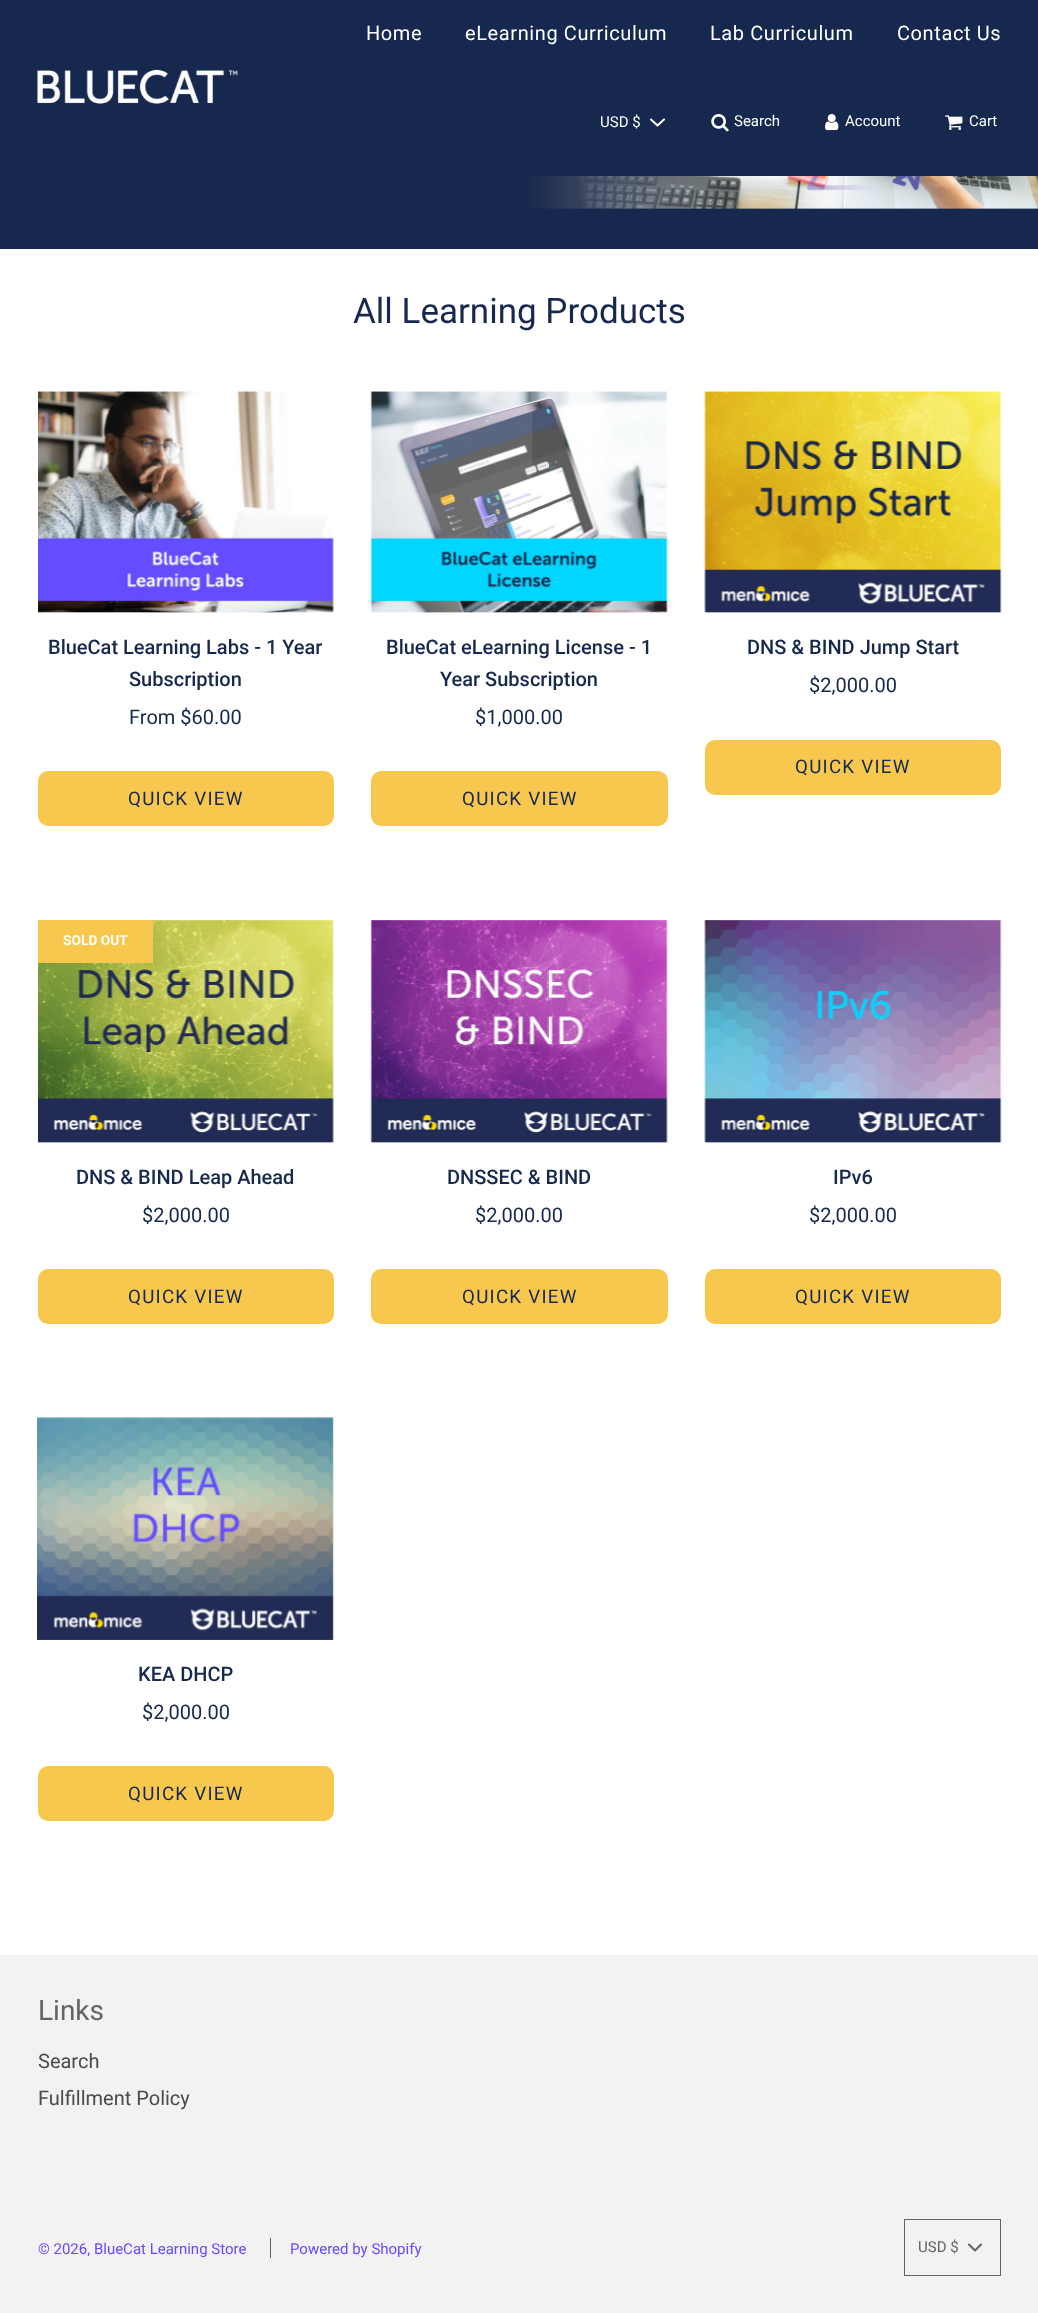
(async () => {
const canvas = document.querySelector("canvas")
canvas.width = 1038
canvas.height = 2313
const c = canvas.getContext("2d")
c.miterLimit = 4
c.fontKerning = "normal"
function T(s,x,y){c.fillText(s,x,y)}
function R(x,y,w,h){c.fillRect(x,y,w,h)}
function Q(x,y,w,h,r){c.beginPath();c.roundRect(x,y,w,h,r);c.fill()}
async function I(src,x,y,w,h){const img=new Image();img.src=src;await img.decode();c.drawImage(img,x,y,w,h)}
let path
c.fillStyle="#fff"
R(0,0,1038,2313)
c.fillStyle="#16284d"
R(0,0,1038,249)
await I("1.png",37,69,201,35)
c.letterSpacing="0.6px"
c.font="20px Roboto"
c.fillStyle="#fff"
T("Home",366,40)
T("eLearning Curriculum",465,40)
T("Lab Curriculum",710,40)
T("Contact Us",897,40)
c.letterSpacing="0px"
c.font="15px Roboto"
T("USD $",600,127)
path = new Path2D("M651 119.5l6.5 6l6.5-6")
c.strokeStyle="#fff"
c.lineWidth=2.1
c.lineCap="round"
c.lineJoin="round"
c.stroke(path)
await I("2.png",711,114,18,18)
T("Search",734,126)
await I("3.png",825,114,14,17)
T("Account",845,126)
await I("4.png",945,115,18,16)
T("Cart",969,126)
await I("5.png",527,176,511,33)
c.font="35px Roboto"
c.fillStyle="#16284d"
T("All Learning Products",353,323)
await I("6.png",38,391,296,222)
c.font="500 20px Roboto"
T("BlueCat Learning Labs - 1 Year",48,654)
T("Subscription",129,686)
c.font="20px Roboto"
T("From $60.00",129,724)
c.fillStyle="#f8c84e"
Q(38,771,296,55,10)
c.letterSpacing="1.25px"
c.font="18.75px Roboto"
c.fillStyle="#16284d"
T("QUICK VIEW",128,805)
await I("7.png",370,391,298,222)
c.letterSpacing="0px"
c.font="500 20px Roboto"
T("BlueCat eLearning License - 1",386,654)
T("Year Subscription",440,686)
c.font="20px Roboto"
T("$1,000.00",475,724)
c.fillStyle="#f8c84e"
Q(371,771,297,55,10)
c.letterSpacing="1.25px"
c.font="18.75px Roboto"
c.fillStyle="#16284d"
T("QUICK VIEW",462,805)
await I("8.png",704,391,298,222)
c.letterSpacing="0px"
c.font="500 20px Roboto"
T("DNS & BIND Jump Start",747,654)
c.font="20px Roboto"
T("$2,000.00",809,692)
c.fillStyle="#f8c84e"
Q(705,740,296,55,10)
c.letterSpacing="1.25px"
c.font="18.75px Roboto"
c.fillStyle="#16284d"
T("QUICK VIEW",795,773)
await I("9.png",38,920,296,223)
c.fillStyle="#f8c84e"
R(38,920,115,43)
c.letterSpacing="0px"
c.font="bold 13.75px Roboto"
c.fillStyle="#fff"
T("SOLD OUT",63,945)
c.font="500 20px Roboto"
c.fillStyle="#16284d"
T("DNS & BIND Leap Ahead",76,1184)
c.font="20px Roboto"
T("$2,000.00",142,1222)
c.fillStyle="#f8c84e"
Q(38,1269,296,55,10)
c.letterSpacing="1.25px"
c.font="18.75px Roboto"
c.fillStyle="#16284d"
T("QUICK VIEW",128,1303)
await I("10.png",370,920,298,223)
c.letterSpacing="0px"
c.font="500 20px Roboto"
T("DNSSEC & BIND",447,1184)
c.font="20px Roboto"
T("$2,000.00",475,1222)
c.fillStyle="#f8c84e"
Q(371,1269,297,55,10)
c.letterSpacing="1.25px"
c.font="18.75px Roboto"
c.fillStyle="#16284d"
T("QUICK VIEW",462,1303)
await I("11.png",704,920,298,223)
c.letterSpacing="0px"
c.font="500 20px Roboto"
T("IPv6",833,1184)
c.font="20px Roboto"
T("$2,000.00",809,1222)
c.fillStyle="#f8c84e"
Q(705,1269,296,55,10)
c.letterSpacing="1.25px"
c.font="18.75px Roboto"
c.fillStyle="#16284d"
T("QUICK VIEW",795,1303)
await I("12.png",37,1417,297,223)
c.letterSpacing="0px"
c.font="500 20px Roboto"
T("KEA DHCP",138,1681)
c.font="20px Roboto"
T("$2,000.00",142,1719)
c.fillStyle="#f8c84e"
Q(38,1766,296,55,10)
c.letterSpacing="1.25px"
c.font="18.75px Roboto"
c.fillStyle="#16284d"
T("QUICK VIEW",128,1800)
c.fillStyle="#f2f2f2"
R(0,1955,1038,358)
c.letterSpacing="0px"
c.font="28px Roboto"
c.fillStyle="#636363"
T("Links",38,2020)
c.font="20px Roboto"
c.fillStyle="#4a4a4a"
T("Search",38,2068)
T("Fulfillment Policy",38,2105)
c.font="15px Roboto"
c.fillStyle="#634dff"
T("© 2026, BlueCat Learning Store",38,2254)
c.fillStyle="#636363"
R(270,2238,1,20)
c.fillStyle="#634dff"
T("Powered by Shopify",290,2254)
c.strokeStyle="#636363"
c.lineWidth=1
c.lineJoin="miter"
c.strokeRect(904.5,2219.5,96,56)
c.fillStyle="#636363"
T("USD $",918,2252)
path = new Path2D("M969 2244.5l6 6l6-6")
c.lineWidth=2.1
c.lineJoin="round"
c.stroke(path)
})()
